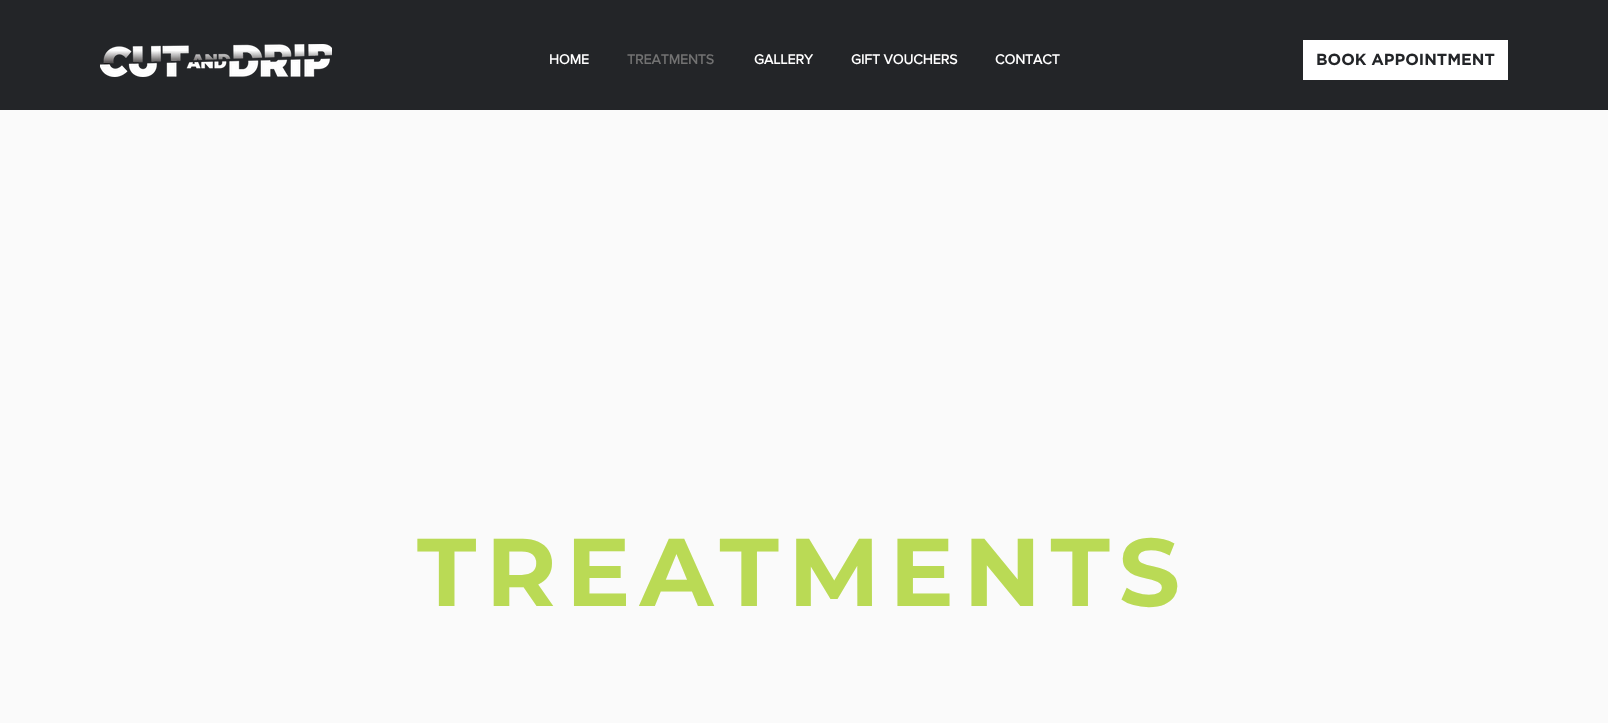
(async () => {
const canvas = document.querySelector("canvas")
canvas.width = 1608
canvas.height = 723
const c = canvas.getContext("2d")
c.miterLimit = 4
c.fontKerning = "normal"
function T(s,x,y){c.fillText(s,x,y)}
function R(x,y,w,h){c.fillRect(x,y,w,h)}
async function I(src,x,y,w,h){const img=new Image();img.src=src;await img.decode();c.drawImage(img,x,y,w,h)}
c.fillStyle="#232528"
R(0,0,1608,723)
await I("1.png",100,44,232,33)
c.font="bold 14px 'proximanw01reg'"
c.fillStyle="#fff"
T("HOME",549,64)
c.fillStyle="#727272"
T("TREATMENTS",627,64)
c.fillStyle="#fff"
T("GALLERY",754,64)
T("GIFT VOUCHERS",851,64)
T("CONTACT",995,64)
R(1303,40,205,40)
c.font="bold 16px Gotham"
c.fillStyle="#232528"
T("BOOK APPOINTMENT",1316,65)
c.fillStyle="#fafafa"
R(0,110,1608,613)
c.letterSpacing="9.5px"
c.font="bold 96px Montserrat"
c.fillStyle="#bada55"
T("TREATMENTS",417,606)
})()
